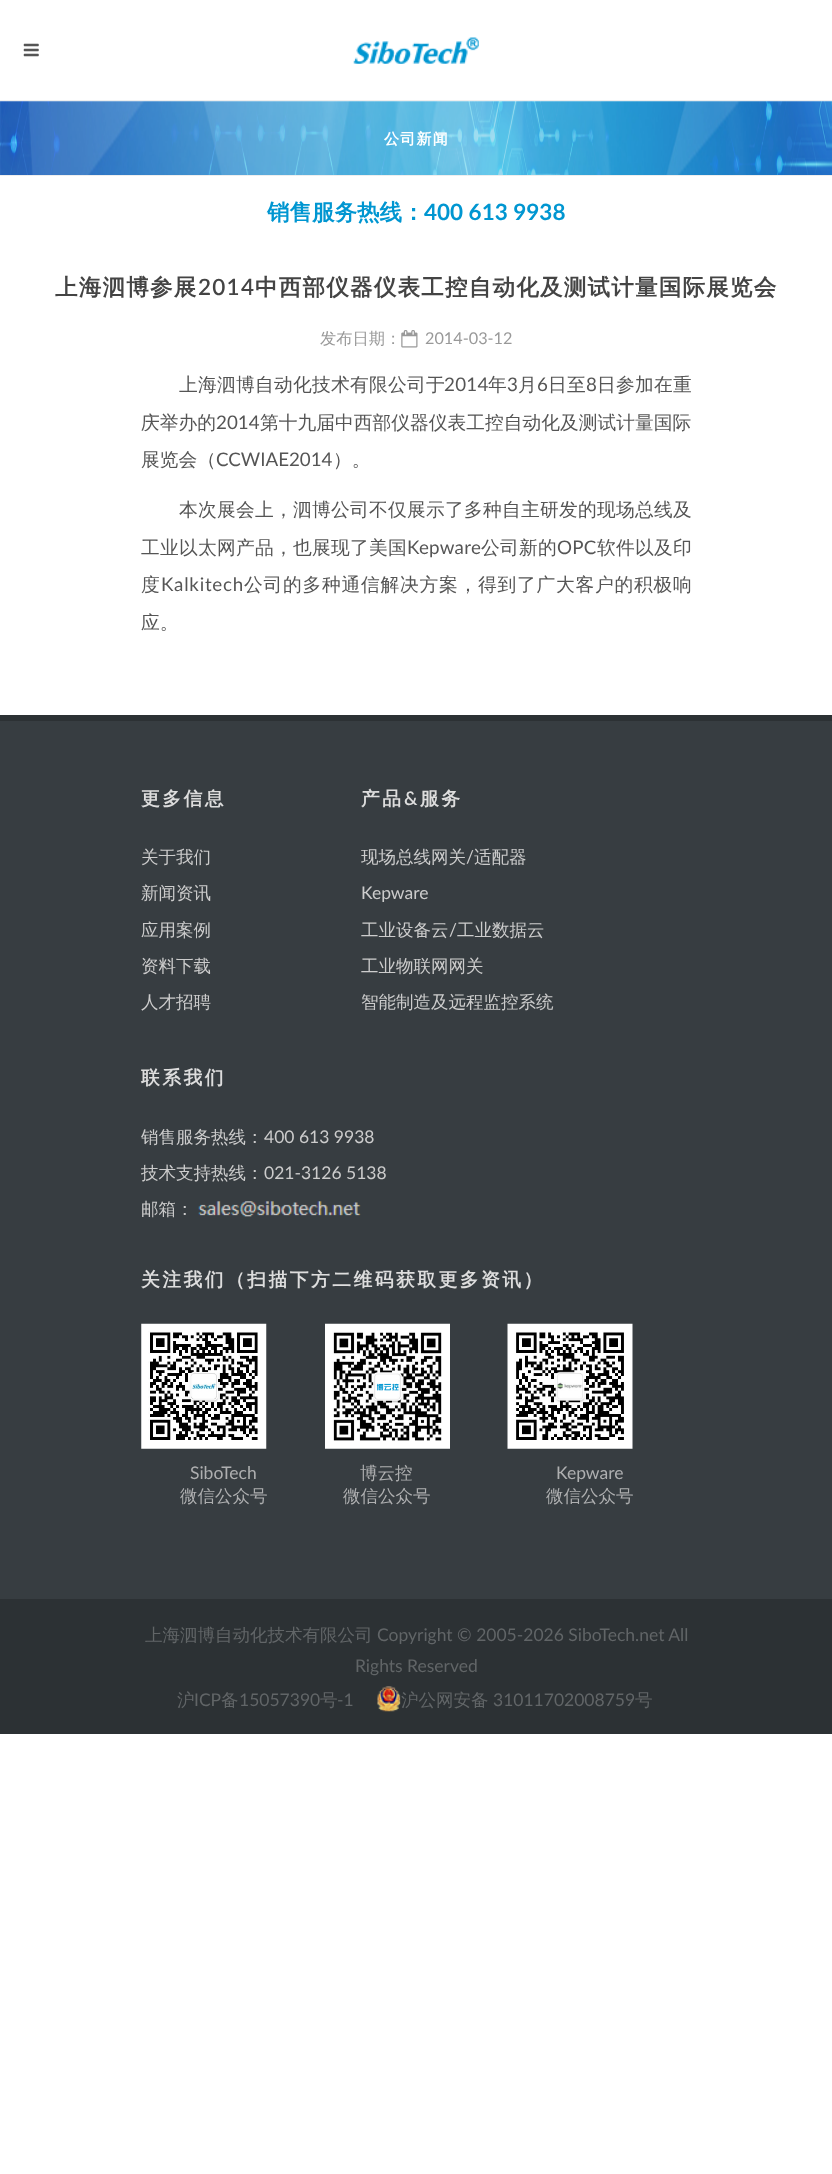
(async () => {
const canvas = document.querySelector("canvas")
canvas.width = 832
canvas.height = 2174
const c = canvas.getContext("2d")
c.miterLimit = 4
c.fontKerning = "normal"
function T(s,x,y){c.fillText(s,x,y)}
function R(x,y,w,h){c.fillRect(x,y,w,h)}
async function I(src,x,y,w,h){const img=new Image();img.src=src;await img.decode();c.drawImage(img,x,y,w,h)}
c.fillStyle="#fff"
R(0,0,832,2174)
c.fillStyle="#eee"
R(0,100,832,1)
await I("1.png",23,43,16,14)
await I("2.png",353,37,126,27)
await I("3.png",0,101,832,74)
R(0,175,832,1)
c.letterSpacing="1.25px"
c.font="bold 15px WenQuanYi Zen Hei"
c.fillStyle="#fff"
T("公司新闻",384,144)
c.letterSpacing="0px"
c.font="bold 22.5px WenQuanYi Zen Hei"
c.fillStyle="#0096d1"
T("销售服务热线：",267,220)
c.font="bold 22.5px Lato"
T("400 613 9938",424,220)
c.letterSpacing="1.25px"
c.font="bold 22.5px WenQuanYi Zen Hei"
c.fillStyle="#444"
T("上海泗博参展",55,295)
c.font="600 22.5px Lato"
T("2014",198,295)
c.font="bold 22.5px WenQuanYi Zen Hei"
T("中西部仪器仪表工控自动化及测试计量国际展览会",255,295)
c.letterSpacing="0px"
c.font="500 16.25px WenQuanYi Zen Hei"
c.fillStyle="#999"
T("发布日期：",320,344)
await I("4.png",401,330,17,18)
c.font="16.25px Lato"
T("2014-03-12",425,344)
c.letterSpacing="0.25px"
c.font="500 18.75px WenQuanYi Zen Hei"
c.fillStyle="#555"
T("上海泗博自动化技术有限公司于",179,391)
c.font="18.75px Lato"
T("2014",444,391)
c.font="500 18.75px WenQuanYi Zen Hei"
T("年",488,391)
c.font="18.75px Lato"
T("3",507,391)
c.font="500 18.75px WenQuanYi Zen Hei"
T("月",518,391)
c.font="18.75px Lato"
T("6",537,391)
c.font="500 18.75px WenQuanYi Zen Hei"
T("日至",548,391)
c.font="18.75px Lato"
T("8",586,391)
c.font="500 18.75px WenQuanYi Zen Hei"
T("日参加在重",597,391)
c.letterSpacing="0px"
T("庆举办的",141,429)
c.font="18.75px Lato"
T("2014",216,429)
c.font="500 18.75px WenQuanYi Zen Hei"
T("第十九届中西部仪器仪表工控自动化及测试计量国际",260,429)
T("展览会（",141,466)
c.font="18.75px Lato"
T("CCWIAE2014",216,466)
c.font="500 18.75px WenQuanYi Zen Hei"
T("）。",333,466)
c.letterSpacing="0.25px"
T("本次展会上，泗博公司不仅展示了多种自主研发的现场总线及",179,516)
T("工业以太网产品，也展现了美国",141,554)
c.font="18.75px Lato"
T("Kepware",407,554)
c.font="500 18.75px WenQuanYi Zen Hei"
T("公司新的",481,554)
c.font="18.75px Lato"
T("OPC",557,554)
c.font="500 18.75px WenQuanYi Zen Hei"
T("软件以及印",597,554)
c.letterSpacing="0.75px"
T("度",141,591)
c.font="18.75px Lato"
T("Kalkitech",161,591)
c.font="500 18.75px WenQuanYi Zen Hei"
T("公司的多种通信解决方案，得到了广大客户的积极响",244,591)
c.letterSpacing="0px"
T("应。",141,629)
c.fillStyle="#373d41"
R(0,721,832,878)
c.fillStyle="#2c3134"
R(0,715,832,6)
c.letterSpacing="2.5px"
c.font="bold 18.75px WenQuanYi Zen Hei"
c.fillStyle="#ddd"
T("更多信息",141,805)
c.letterSpacing="0px"
c.font="500 17.5px WenQuanYi Zen Hei"
c.fillStyle="#ccc"
T("关于我们",141,863)
T("新闻资讯",141,899)
T("应用案例",141,936)
T("资料下载",141,972)
T("人才招聘",141,1008)
c.letterSpacing="2.5px"
c.font="bold 18.75px WenQuanYi Zen Hei"
c.fillStyle="#ddd"
T("产品",361,805)
c.font="600 18.75px Lato"
T("&",404,805)
c.font="bold 18.75px WenQuanYi Zen Hei"
T("服务",420,805)
c.letterSpacing="0px"
c.font="500 17.5px WenQuanYi Zen Hei"
c.fillStyle="#ccc"
T("现场总线网关",361,863)
c.font="17.5px Lato"
T("/",466,863)
c.font="500 17.5px WenQuanYi Zen Hei"
T("适配器",474,863)
c.font="17.5px Lato"
T("Kepware",361,899)
c.font="500 17.5px WenQuanYi Zen Hei"
T("工业设备云",361,936)
c.font="17.5px Lato"
T("/",449,936)
c.font="500 17.5px WenQuanYi Zen Hei"
T("工业数据云",457,936)
T("工业物联网网关",361,972)
T("智能制造及远程监控系统",361,1008)
c.letterSpacing="2.5px"
c.font="bold 18.75px WenQuanYi Zen Hei"
c.fillStyle="#ddd"
T("联系我们",141,1084)
c.letterSpacing="0px"
c.font="500 17.5px WenQuanYi Zen Hei"
c.fillStyle="#ccc"
T("销售服务热线：",141,1143)
c.font="17.5px Lato"
T("400 613 9938",264,1143)
c.font="500 17.5px WenQuanYi Zen Hei"
T("技术支持热线：",141,1179)
c.font="17.5px Lato"
T("021-3126 5138",264,1179)
c.font="500 17.5px WenQuanYi Zen Hei"
T("邮箱：",141,1215)
await I("5.png",198,1201,163,16)
c.letterSpacing="2.5px"
c.font="bold 18.75px WenQuanYi Zen Hei"
c.fillStyle="#ddd"
T("关注我们（扫描下方二维码获取更多资讯）",141,1286)
await I("6.png",141,1323,126,126)
c.letterSpacing="0px"
c.font="17.5px Lato"
c.fillStyle="#aeafb0"
T("SiboTech",190,1479)
c.font="500 17.5px WenQuanYi Zen Hei"
T("微信公众号",180,1502)
await I("7.png",325,1323,125,126)
T("博云控",360,1479)
T("微信公众号",343,1502)
await I("8.png",507,1323,126,126)
c.font="17.5px Lato"
T("Kepware",556,1479)
c.font="500 17.5px WenQuanYi Zen Hei"
T("微信公众号",546,1502)
c.fillStyle="#2c3134"
R(0,1599,832,135)
c.fillStyle="#616567"
T("上海泗博自动化技术有限公司",145,1641)
c.font="17.5px Lato"
T("Copyright © 2005-2026 SiboTech.net All",377,1641)
T("Rights Reserved",355,1672)
c.font="500 17.5px WenQuanYi Zen Hei"
T("沪",177,1706)
c.font="17.5px Lato"
T("ICP",194,1706)
c.font="500 17.5px WenQuanYi Zen Hei"
T("备",221,1706)
c.font="17.5px Lato"
T("15057390",239,1706)
c.font="500 17.5px WenQuanYi Zen Hei"
T("号",320,1706)
c.font="17.5px Lato"
T("-1",337,1706)
c.font="500 17.5px WenQuanYi Zen Hei"
T("沪公网安备",401,1706)
await I("9.png",377,1686,24,26)
c.font="17.5px Lato"
T("31011702008759",493,1706)
c.font="500 17.5px WenQuanYi Zen Hei"
T("号",635,1706)
})()
